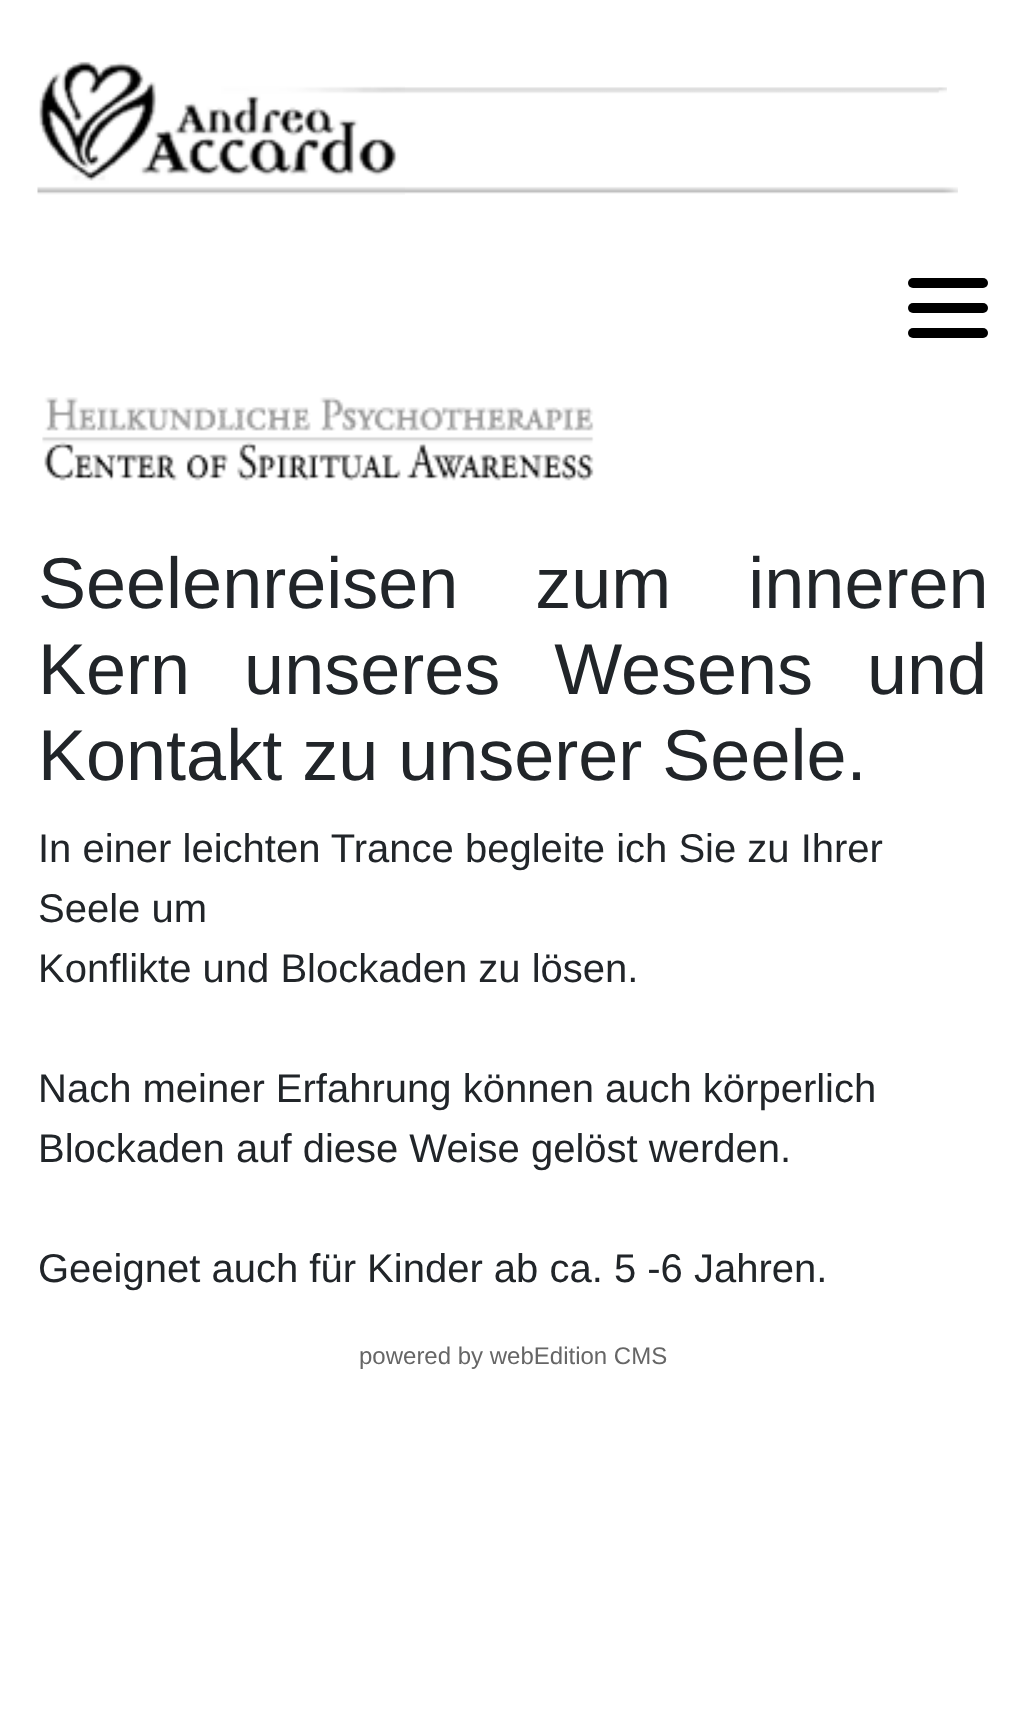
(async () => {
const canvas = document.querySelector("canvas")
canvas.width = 1023
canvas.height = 1726
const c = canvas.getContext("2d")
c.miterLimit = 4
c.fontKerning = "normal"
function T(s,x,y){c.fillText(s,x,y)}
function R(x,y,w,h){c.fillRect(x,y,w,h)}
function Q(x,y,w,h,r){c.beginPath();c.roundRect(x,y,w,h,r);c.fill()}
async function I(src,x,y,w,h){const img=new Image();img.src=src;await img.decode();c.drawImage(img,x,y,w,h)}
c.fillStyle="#fff"
R(0,0,1023,1726)
await I("1.png",405,87,553,107)
await I("2.png",37,61,368,134)
c.fillStyle="#000"
Q(908,278,80,10,5)
Q(908,303,80,10,5)
Q(908,328,80,10,5)
await I("3.png",42,397,552,84)
c.wordSpacing="57px"
c.font="72px Liberation Sans"
c.fillStyle="#212529"
T("Seelenreisen zum inneren",38,608)
c.wordSpacing="34px"
T("Kern unseres Wesens und",38,694)
c.wordSpacing="0px"
T("Kontakt zu unserer Seele.",38,780)
c.font="40px Liberation Sans"
T("In einer leichten Trance begleite ich Sie zu Ihrer",38,862)
T("Seele um",38,922)
T("Konflikte und Blockaden zu lösen.",38,982)
T("Nach meiner Erfahrung können auch körperlich",38,1102)
T("Blockaden auf diese Weise gelöst werden.",38,1162)
T("Geeignet auch für Kinder ab ca. 5 -6 Jahren.",38,1282)
c.font="24px Liberation Sans"
c.fillStyle="#666"
T("powered by webEdition CMS",359,1364)
})()
